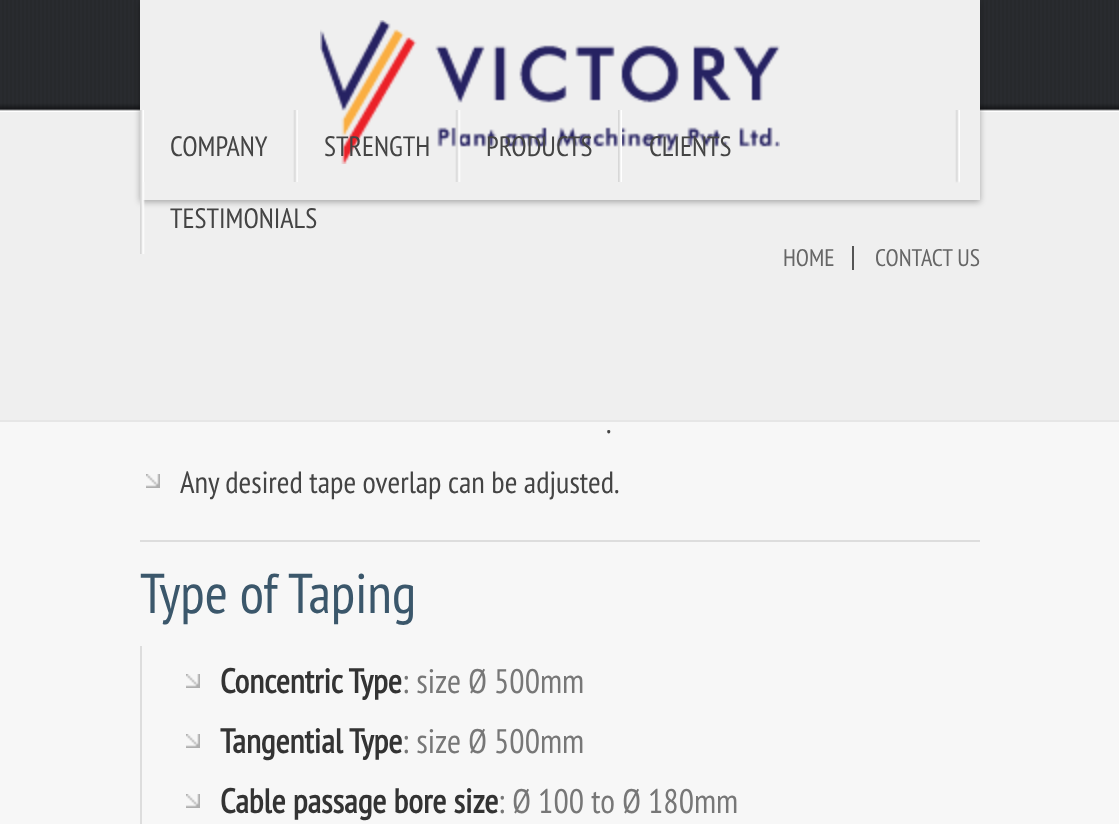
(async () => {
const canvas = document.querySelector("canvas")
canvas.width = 1119
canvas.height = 824
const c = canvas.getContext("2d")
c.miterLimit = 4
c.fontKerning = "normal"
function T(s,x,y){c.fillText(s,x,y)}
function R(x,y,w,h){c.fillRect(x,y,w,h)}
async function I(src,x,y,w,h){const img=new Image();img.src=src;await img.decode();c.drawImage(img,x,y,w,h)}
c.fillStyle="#f7f7f7"
R(0,0,1119,824)
c.fillStyle="#efefef"
R(0,112,1119,308)
await I("1.png",0,0,1119,112)
c.fillStyle="#e6e6e6"
R(0,420,1119,2)
c.fillStyle="#0000004d"
c.filter="blur(3px)"
c.beginPath()
c.rect(140,2,840,200)
c.fill()
c.filter="none"
c.fillStyle="#efefef"
R(140,0,840,200)
await I("2.png",320,20,460,144)
await I("3.png",955,110,5,73)
await I("4.png",140,110,4,72)
c.font="28px PT Sans Narrow"
c.fillStyle="#444"
T("COMPANY",170,156)
await I("5.png",293,110,5,72)
T("STRENGTH",324,156)
await I("6.png",455,110,6,72)
T("PRODUCTS",486,156)
await I("4.png",618,110,4,72)
T("CLIENTS",649,156)
await I("7.png",140,182,5,72)
T("TESTIMONIALS",170,228)
c.fillStyle="#555"
R(852,246,2,24)
c.font="24px PT Sans Narrow"
c.fillStyle="#666"
T("HOME",783,266)
T("CONTACT US",875,266)
c.font="30.75px PT Sans Narrow"
c.fillStyle="#444"
T(".",606,433)
await I("8.png",146,474,14,14)
T("Any desired tape overlap can be adjusted.",180,493)
c.fillStyle="#ddd"
R(140,540,840,2)
c.font="56px PT Sans Narrow"
c.fillStyle="#3b576b"
T("Type of Taping",140,613)
c.fillStyle="#ddd"
R(140,646,2,178)
await I("8.png",186,674,14,14)
c.font="bold 34px PT Sans Narrow"
c.fillStyle="#333"
T("Concentric Type",220,693)
c.font="34px PT Sans Narrow"
c.fillStyle="#777"
T(": size Ø 500mm",402,693)
await I("8.png",186,734,14,14)
c.font="bold 34px PT Sans Narrow"
c.fillStyle="#333"
T("Tangential Type",220,753)
c.font="34px PT Sans Narrow"
c.fillStyle="#777"
T(": size Ø 500mm",402,753)
await I("8.png",186,794,14,14)
c.font="bold 34px PT Sans Narrow"
c.fillStyle="#333"
T("Cable passage bore size",220,813)
c.font="34px PT Sans Narrow"
c.fillStyle="#777"
T(": Ø 100 to Ø 180mm",498,813)
})()
